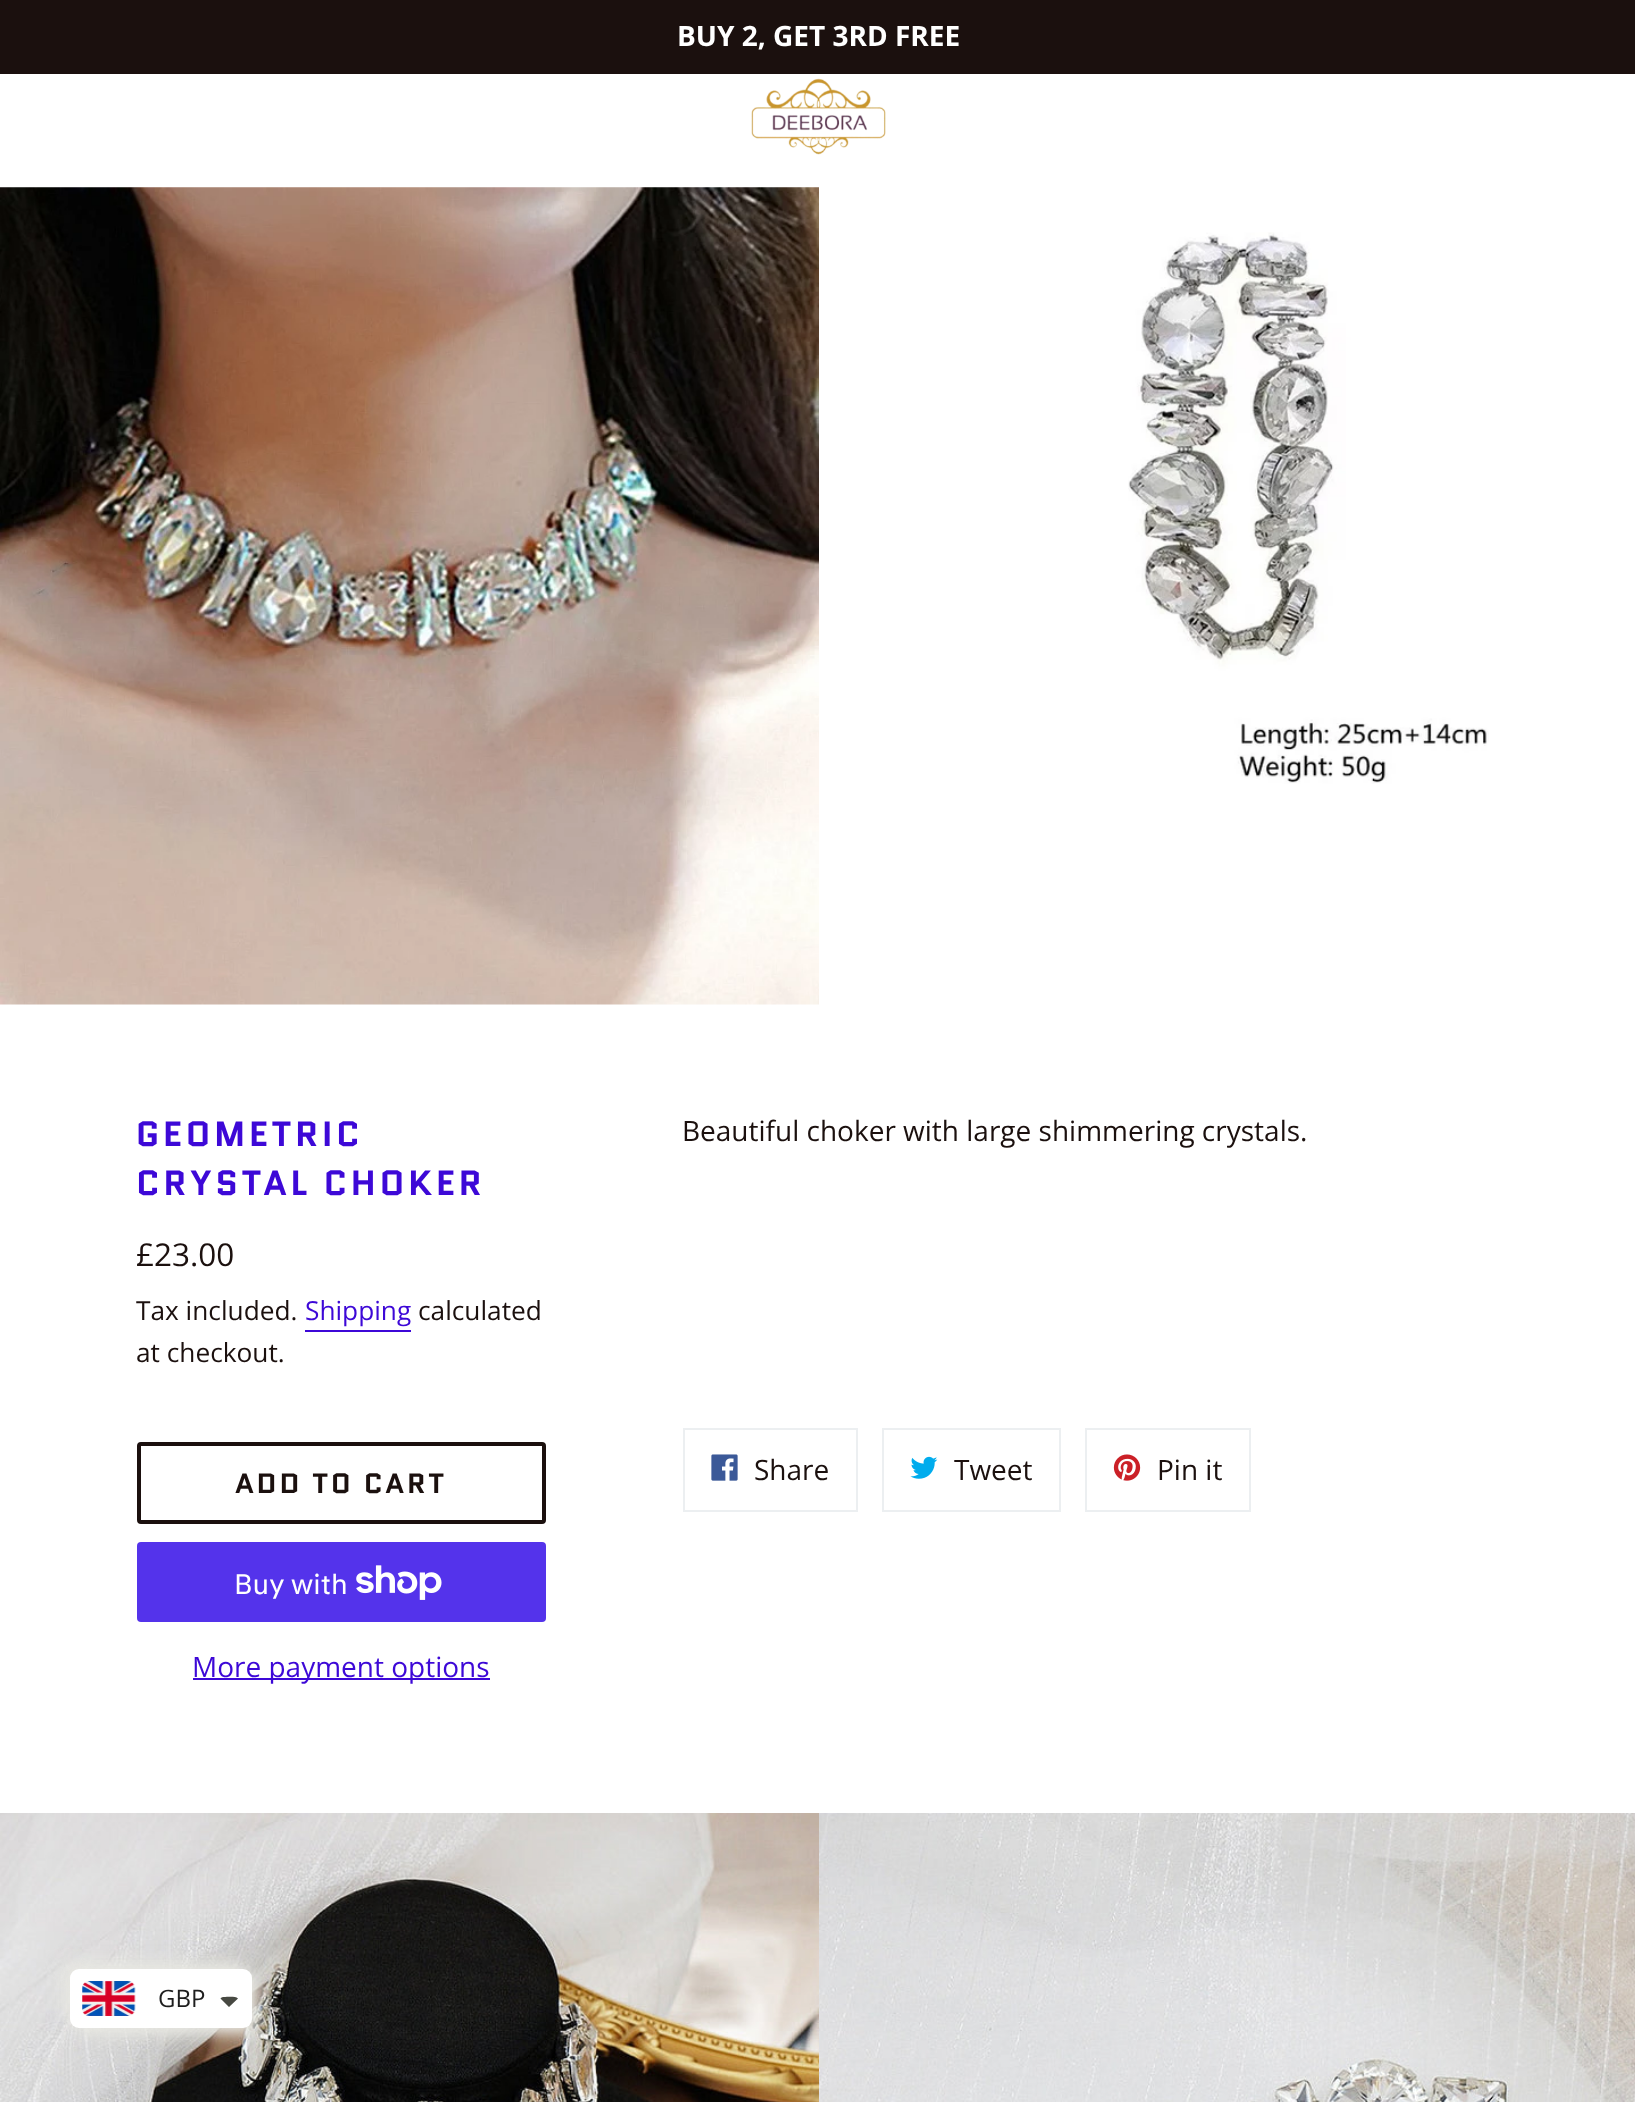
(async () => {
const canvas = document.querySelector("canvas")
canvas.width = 1635
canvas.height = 2102
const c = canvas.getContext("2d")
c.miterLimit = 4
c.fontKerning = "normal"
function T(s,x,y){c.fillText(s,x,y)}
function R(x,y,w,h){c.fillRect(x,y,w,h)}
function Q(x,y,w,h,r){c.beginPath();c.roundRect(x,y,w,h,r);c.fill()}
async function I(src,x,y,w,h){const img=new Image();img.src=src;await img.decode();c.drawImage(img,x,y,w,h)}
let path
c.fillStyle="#fff"
R(0,0,1635,2102)
c.fillStyle="#1b100e"
R(0,0,1635,74)
c.font="bold 28px Open Sans"
c.fillStyle="#fff"
T("BUY 2, GET 3RD FREE",677,46)
await I("1.png",751,78,135,77)
await I("2.png",0,187,819,818)
await I("3.png",1128,232,361,552)
c.letterSpacing="3.5px"
c.font="bold 35px Quantico"
c.fillStyle="#3d08d7"
T("GEOMETRIC",136,1146)
T("CRYSTAL CHOKER",136,1195)
c.letterSpacing="0px"
c.font="31.5px Open Sans"
c.fillStyle="#1b100e"
T("£23.00",136,1266)
c.font="26.25px Open Sans"
T("Tax included.",136,1320)
c.fillStyle="#3d08d7"
T("Shipping",305,1320)
R(305,1330,106,2)
c.fillStyle="#1b100e"
T("calculated",418,1320)
T("at checkout.",136,1362)
c.beginPath()
c.roundRect(139,1444,405,78,2)
c.strokeStyle="#1b100e"
c.lineWidth=4
c.stroke()
c.letterSpacing="2.75px"
c.font="bold 28px Quantico"
T("ADD TO CART",235,1493)
c.fillStyle="#5433eb"
Q(137,1542,409,80,4)
c.letterSpacing="0px"
c.font="28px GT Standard"
c.fillStyle="#fff"
T("Buy with",234,1594)
await I("4.png",356,1565,86,35)
c.fillStyle="#3d08d7"
R(193,1678,297,2)
c.font="28px Open Sans"
T("More payment options",192,1677)
c.fillStyle="#1b100e"
T("Beautiful choker with large shimmering crystals.",682,1141)
c.strokeStyle="#eceff1"
c.lineWidth=2
c.strokeRect(684,1429,173,82)
await I("5.png",711,1454,27,27)
T("Share",754,1480)
c.strokeRect(883,1429,177,82)
await I("6.png",910,1456,28,23)
T("Tweet",954,1480)
c.strokeRect(1086,1429,164,82)
await I("7.png",1113,1454,28,27)
T("Pin it",1157,1480)
await I("8.png",0,1813,819,289)
await I("9.png",819,1813,816,289)
c.fillStyle="#e8e8e2"
c.filter="blur(8px)"
c.beginPath()
c.roundRect(63,1962,182,59,9)
c.fill()
c.filter="none"
c.filter="blur(8px)"
c.beginPath()
c.roundRect(77,1976,182,59,9)
c.fill()
c.filter="none"
c.fillStyle="#fff"
Q(70,1969,182,59,9)
await I("10.png",82,1981,54,35)
c.font="24px Open Sans"
c.fillStyle="#1e1e1e"
T("GBP",158,2007)
c.fillStyle="#474942"
path = new Path2D("M224 1997c3.5 0 11.5-1 14 1.5l-9 8.5l-8.5-8.5c.5-1 2-1.5 3.5-1.5z")
c.fill(path)
})()
